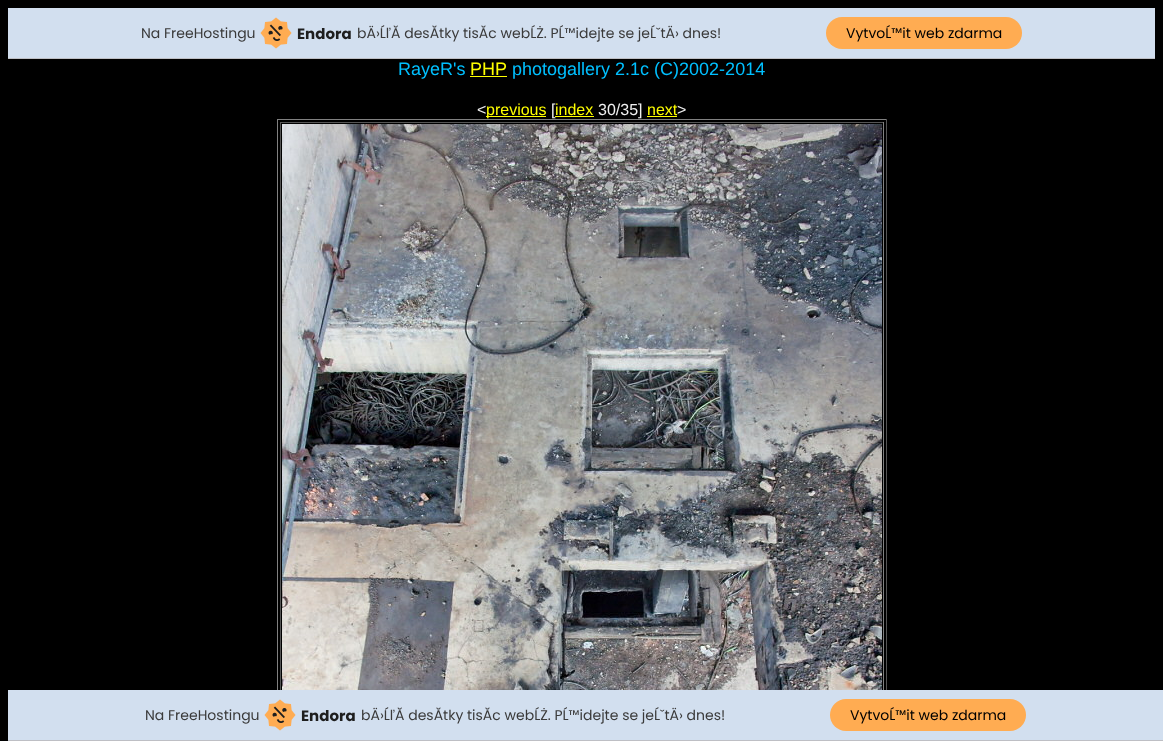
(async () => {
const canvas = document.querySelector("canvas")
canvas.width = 1163
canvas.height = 741
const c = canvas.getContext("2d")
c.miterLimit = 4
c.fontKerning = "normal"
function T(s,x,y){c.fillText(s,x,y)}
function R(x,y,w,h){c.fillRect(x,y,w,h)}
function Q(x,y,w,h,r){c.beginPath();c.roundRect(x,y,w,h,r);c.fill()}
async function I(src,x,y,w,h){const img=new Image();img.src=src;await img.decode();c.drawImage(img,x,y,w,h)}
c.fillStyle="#000"
R(0,0,1163,741)
c.fillStyle="#d2dfef"
R(8,8,1147,50)
c.fillStyle="#bebfc4"
R(8,58,1147,1)
c.font="14px Poppins"
c.fillStyle="#3a3a3a"
T("Na FreeHostingu",141,38)
await I("1.png",260,17,32,32)
c.font="bold 15px Poppins"
c.fillStyle="#1e1e1e"
T("Endora",297,39)
c.font="14px Poppins"
c.fillStyle="#3a3a3a"
T("bÄ›ĹľĂ desĂtky tisĂc webĹŻ. PĹ™idejte se jeĹˇtÄ› dnes!",357,38)
c.fillStyle="#ffac52"
Q(826,17,196,32,16)
c.fillStyle="#000"
T("VytvoĹ™it web zdarma",846,38)
c.font="18px Liberation Sans"
c.fillStyle="#00c0ff"
T("RayeR's",398,75)
c.fillStyle="#ff0"
T("PHP",470,75)
R(470,76,37,1)
c.fillStyle="#00c0ff"
T("photogallery 2.1c (C)2002-2014",512,75)
c.font="16px Liberation Sans"
c.fillStyle="#f0f0f0"
T("<",477,115)
c.fillStyle="#ff0"
R(486,116,60,1)
T("previous",486,115)
c.fillStyle="#f0f0f0"
T("[",551,115)
c.fillStyle="#ff0"
T("index",555,115)
R(555,116,39,1)
c.fillStyle="#f0f0f0"
T("30/35]",598,115)
c.fillStyle="#ff0"
T("next",647,115)
R(647,116,30,1)
c.fillStyle="#f0f0f0"
T(">",677,115)
c.fillStyle="#808080"
R(277,119,610,1)
c.fillStyle="#555"
R(886,119,1,571)
c.fillStyle="#808080"
R(277,119,1,571)
c.fillStyle="#555"
R(280,122,604,1)
c.fillStyle="#808080"
R(883,122,1,568)
c.fillStyle="#555"
R(280,122,1,568)
await I("2.png",282,124,600,566)
c.fillStyle="#d2dfef"
R(8,690,1155,50)
c.fillStyle="#bebfc4"
R(8,740,1155,1)
c.font="14px Poppins"
c.fillStyle="#3a3a3a"
T("Na FreeHostingu",145,720)
await I("1.png",264,699,32,32)
c.font="bold 15px Poppins"
c.fillStyle="#1e1e1e"
T("Endora",301,721)
c.font="14px Poppins"
c.fillStyle="#3a3a3a"
T("bÄ›ĹľĂ desĂtky tisĂc webĹŻ. PĹ™idejte se jeĹˇtÄ› dnes!",361,720)
c.fillStyle="#ffac52"
Q(830,699,196,32,16)
c.fillStyle="#000"
T("VytvoĹ™it web zdarma",850,720)
})()
